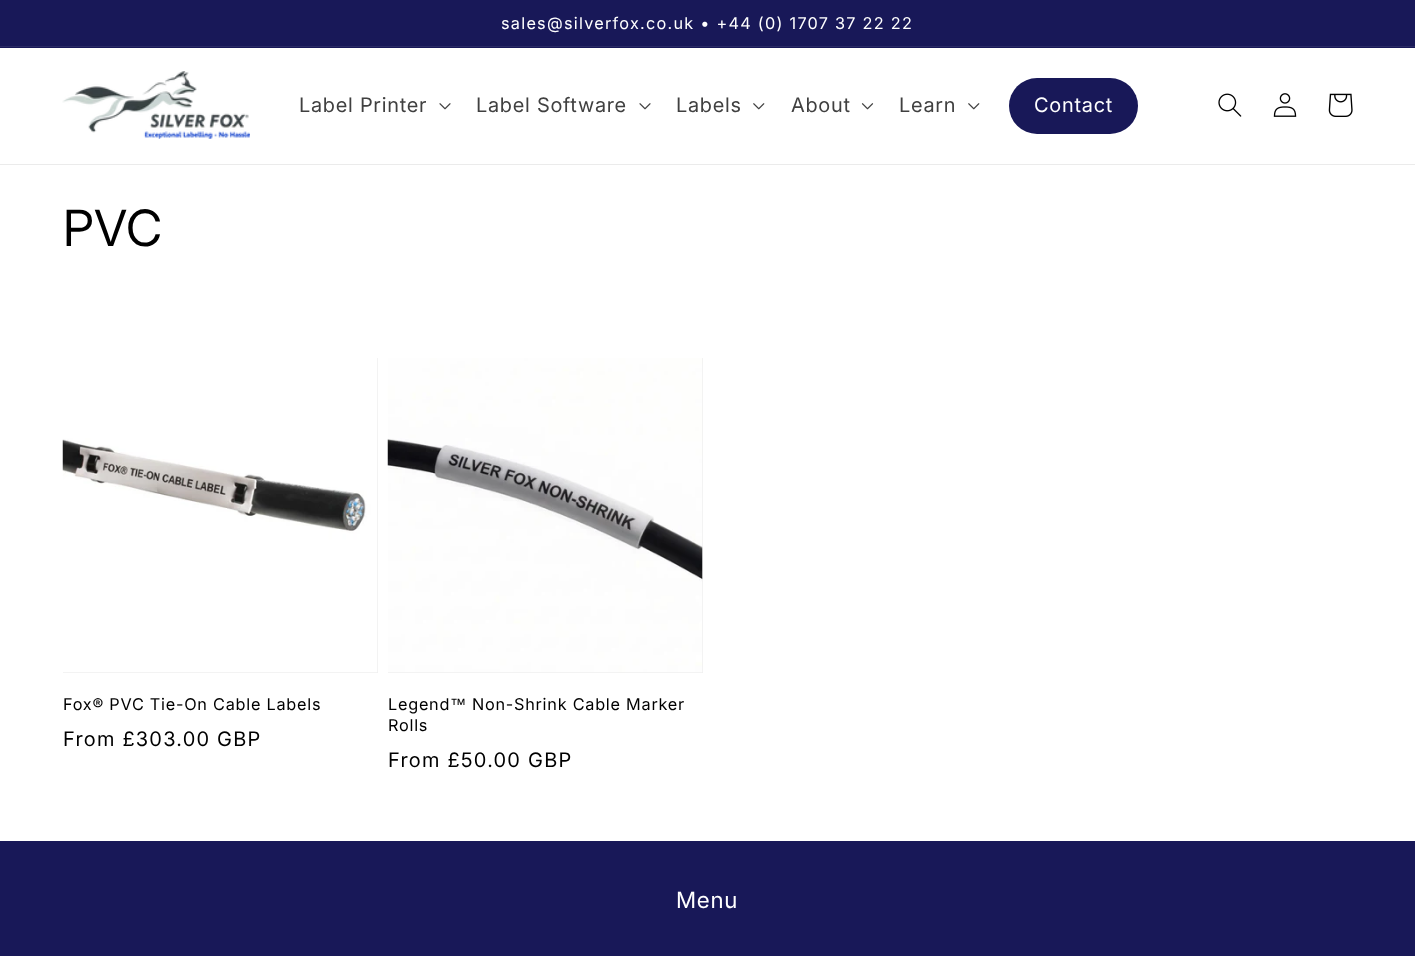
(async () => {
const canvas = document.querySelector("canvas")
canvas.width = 1415
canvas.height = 956
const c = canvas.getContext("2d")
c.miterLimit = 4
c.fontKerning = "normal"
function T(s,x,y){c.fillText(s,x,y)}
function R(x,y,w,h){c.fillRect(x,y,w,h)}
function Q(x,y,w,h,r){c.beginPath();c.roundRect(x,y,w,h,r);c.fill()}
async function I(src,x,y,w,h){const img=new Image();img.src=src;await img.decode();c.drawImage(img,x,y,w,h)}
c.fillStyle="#fff"
R(0,0,1415,956)
c.fillStyle="#181858"
R(0,0,1415,48)
c.fillStyle="#2a2a65"
R(0,46,1415,1)
c.letterSpacing="1.25px"
c.font="16.25px 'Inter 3'"
c.fillStyle="#fff"
T("sales@silverfox.co.uk • +44 (0) 1707 37 22 22",501,29)
c.fillStyle="#ebebeb"
R(0,164,1415,1)
await I("1.png",62,71,188,68)
c.letterSpacing="0.75px"
c.font="20px 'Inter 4'"
c.fillStyle="#404040"
T("Label Printer",299,112)
await I("2.png",439,103,12,7)
T("Label Software",476,112)
await I("2.png",639,103,12,7)
T("Labels",676,112)
await I("3.png",753,103,12,7)
T("About",791,112)
await I("4.png",861,103,13,7)
T("Learn",899,112)
await I("3.png",968,103,12,7)
c.fillStyle="#181858"
Q(1009,78,129,56,28)
c.fillStyle="#fff"
T("Contact",1034,112)
await I("5.png",1218,93,24,24)
await I("6.png",1273,93,24,24)
await I("7.png",1328,93,25,24)
c.font="50px Inter"
c.fillStyle="#000"
T("PVC",63,246)
c.fillStyle="#efefef"
R(63,358,315,315)
await I("8.png",62,358,316,315)
c.font="16.25px 'Inter 3'"
c.fillStyle="#000"
T("Fox® PVC Tie-On Cable Labels",63,710)
c.letterSpacing="1.25px"
c.font="20px 'Inter 4'"
T("From £303.00 GBP",63,746)
c.fillStyle="#efefef"
R(388,358,315,315)
await I("9.png",387,358,316,315)
c.letterSpacing="0.75px"
c.font="16.25px 'Inter 3'"
c.fillStyle="#000"
T("Legend",388,710)
c.font="16.25px Liberation Sans"
T("™",450,710)
c.font="16.25px 'Inter 3'"
T("Non-Shrink Cable Marker",472,710)
T("Rolls",388,731)
c.letterSpacing="1.25px"
c.font="20px 'Inter 4'"
T("From £50.00 GBP",388,767)
c.fillStyle="#181858"
R(0,841,1415,115)
c.letterSpacing="0.75px"
c.font="22.5px 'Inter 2'"
c.fillStyle="#fff"
T("Menu",676,908)
})()
